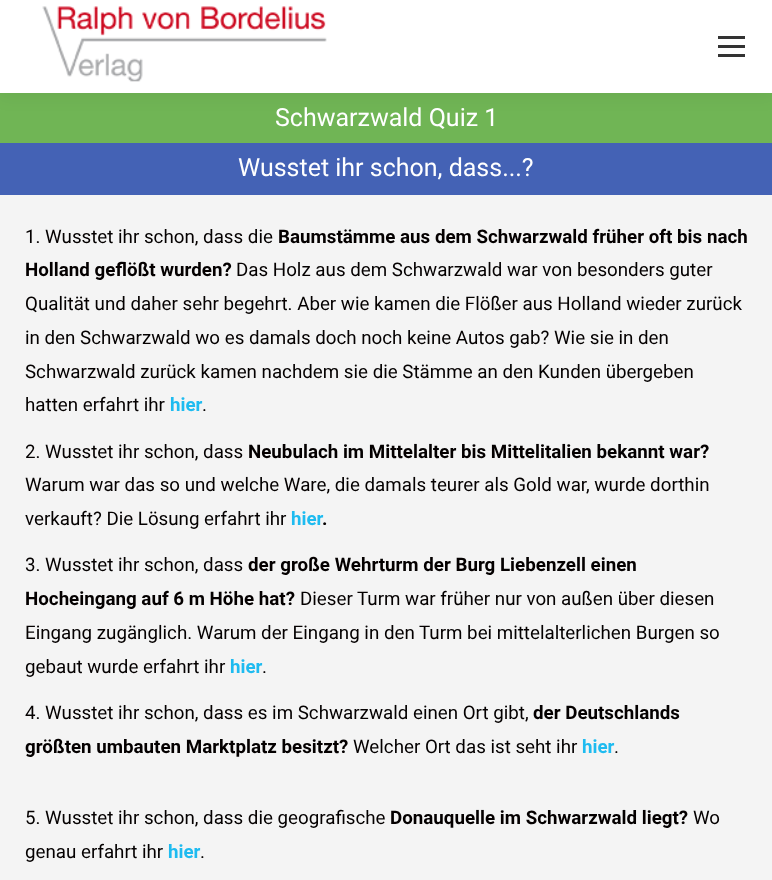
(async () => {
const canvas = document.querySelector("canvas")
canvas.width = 772
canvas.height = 880
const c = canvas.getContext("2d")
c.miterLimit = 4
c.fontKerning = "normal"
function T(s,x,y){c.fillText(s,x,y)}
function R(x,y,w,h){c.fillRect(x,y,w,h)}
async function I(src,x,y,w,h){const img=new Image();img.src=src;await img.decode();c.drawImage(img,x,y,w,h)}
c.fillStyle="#70b555"
R(0,0,772,880)
c.fillStyle="#00000012"
c.filter="blur(9.5px)"
c.beginPath()
c.rect(-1,-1,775,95)
c.fill()
c.filter="none"
c.fillStyle="#fff"
R(0,0,772,93)
await I("1.png",42,6,285,76)
c.fillStyle="#333"
R(718,36,27,3)
R(718,45,27,3)
R(718,54,27,3)
c.font="25px Roboto"
c.fillStyle="#fff"
T("Schwarzwald Quiz 1",275,126)
c.fillStyle="#4462b5"
R(0,143,772,52)
c.fillStyle="#fff"
T("Wusstet ihr schon, dass...?",238,176)
c.fillStyle="#f4f4f4"
R(0,195,772,685)
c.font="18.75px Roboto"
c.fillStyle="#040000"
T("1. Wusstet ihr schon, dass die",25,243)
c.font="bold 18.75px Roboto"
T("Baumstämme aus dem Schwarzwald früher oft bis nach",278,243)
T("Holland geflößt wurden?",25,276)
c.font="18.75px Roboto"
T("Das Holz aus dem Schwarzwald war von besonders guter",236,276)
T("Qualität und daher sehr begehrt. Aber wie kamen die Flößer aus Holland wieder zurück",25,310)
T("in den Schwarzwald wo es damals doch noch keine Autos gab? Wie sie in den",25,344)
T("Schwarzwald zurück kamen nachdem sie die Stämme an den Kunden übergeben",25,378)
T("hatten erfahrt ihr",25,411)
c.font="bold 18.75px Roboto"
c.fillStyle="#1ebbf0"
T("hier",170,411)
c.font="18.75px Roboto"
c.fillStyle="#040000"
T(".",202,411)
T("2. Wusstet ihr schon, dass",25,458)
c.font="bold 18.75px Roboto"
T("Neubulach im Mittelalter bis Mittelitalien bekannt war?",248,458)
c.font="18.75px Roboto"
T("Warum war das so und welche Ware, die damals teurer als Gold war, wurde dorthin",25,491)
T("verkauft? Die Lösung erfahrt ihr",25,525)
c.font="bold 18.75px Roboto"
c.fillStyle="#1ebbf0"
T("hier",291,525)
c.fillStyle="#040000"
T(".",322,525)
c.font="18.75px Roboto"
T("3. Wusstet ihr schon, dass",25,571)
c.font="bold 18.75px Roboto"
T("der große Wehrturm der Burg Liebenzell einen",248,571)
T("Hocheingang auf 6 m Höhe hat?",25,605)
c.font="18.75px Roboto"
T("Dieser Turm war früher nur von außen über diesen",300,605)
T("Eingang zugänglich. Warum der Eingang in den Turm bei mittelalterlichen Burgen so",25,639)
T("gebaut wurde erfahrt ihr",25,673)
c.font="bold 18.75px Roboto"
c.fillStyle="#1ebbf0"
T("hier",230,673)
c.font="18.75px Roboto"
c.fillStyle="#040000"
T(".",262,673)
T("4. Wusstet ihr schon, dass es im Schwarzwald einen Ort gibt,",25,719)
c.font="bold 18.75px Roboto"
T("der Deutschlands",533,719)
T("größten umbauten Marktplatz besitzt?",25,753)
c.font="18.75px Roboto"
T("Welcher Ort das ist seht ihr",353,753)
c.font="bold 18.75px Roboto"
c.fillStyle="#1ebbf0"
T("hier",582,753)
c.font="18.75px Roboto"
c.fillStyle="#040000"
T(".",614,753)
T("5. Wusstet ihr schon, dass die geografische",25,824)
c.font="bold 18.75px Roboto"
T("Donauquelle im Schwarzwald liegt?",390,824)
c.font="18.75px Roboto"
T("Wo",693,824)
T("genau erfahrt ihr",25,858)
c.font="bold 18.75px Roboto"
c.fillStyle="#1ebbf0"
T("hier",168,858)
c.font="18.75px Roboto"
c.fillStyle="#040000"
T(".",200,858)
})()
